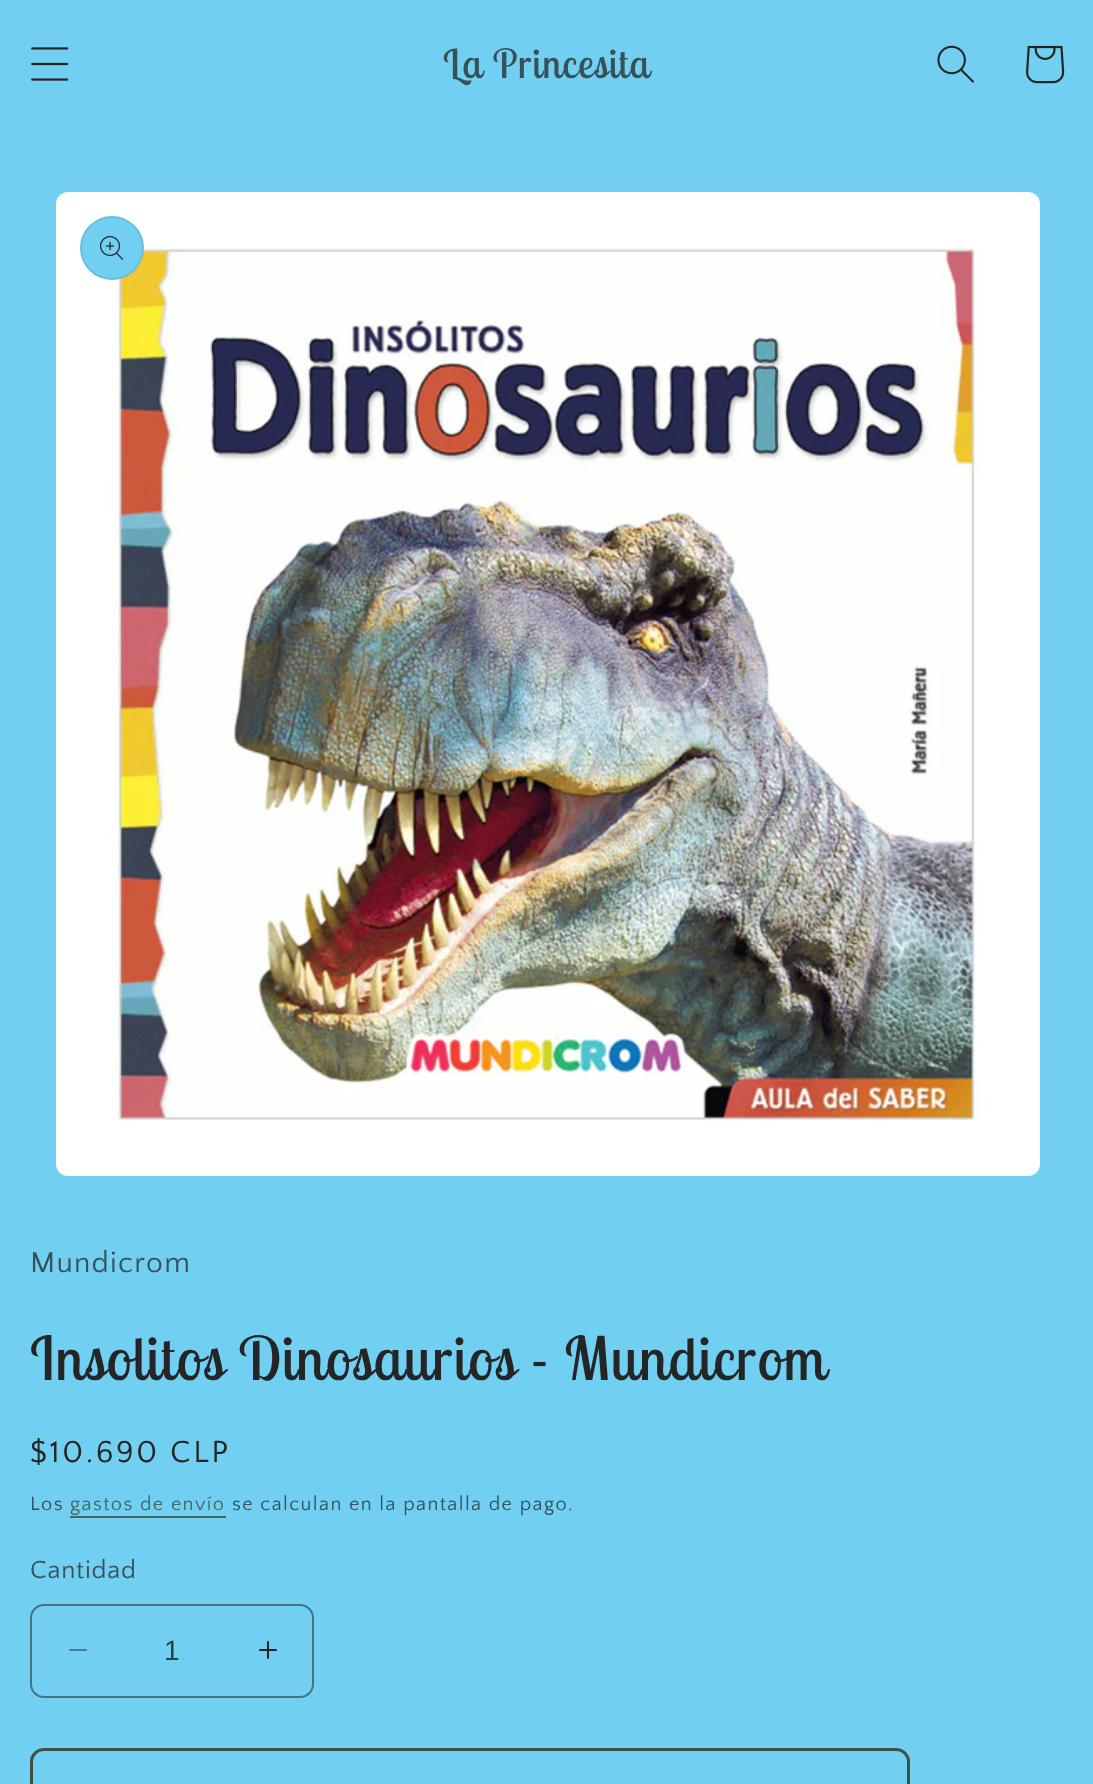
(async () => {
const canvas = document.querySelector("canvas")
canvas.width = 1093
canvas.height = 1784
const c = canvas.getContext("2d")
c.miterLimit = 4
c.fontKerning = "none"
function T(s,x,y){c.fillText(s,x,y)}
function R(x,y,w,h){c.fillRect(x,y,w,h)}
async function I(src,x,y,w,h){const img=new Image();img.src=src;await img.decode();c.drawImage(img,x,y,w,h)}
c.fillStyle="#71d0f1"
R(0,0,1093,1784)
await I("1.png",31,47,38,34)
c.letterSpacing="1.2px"
c.font="40px Lobster Two"
c.fillStyle="#385058"
T("La Princesita",443,78)
await I("2.png",937,45,37,38)
await I("3.png",1026,45,39,39)
await I("4.png",56,192,984,984)
c.fillStyle="#71d0f1"
c.beginPath()
c.arc(112,248,32,0,7)
c.fill()
c.beginPath()
c.arc(112,248,31,0,7)
c.strokeStyle="#2525251a"
c.lineWidth=2
c.stroke()
await I("5.png",100,236,24,24)
c.font="30px Quattrocento Sans"
c.fillStyle="#385058"
T("Mundicrom",30,1272)
c.font="60px Lobster Two"
c.fillStyle="#252525"
T("Insolitos Dinosaurios - Mundicrom",30,1380)
c.letterSpacing="2.6px"
c.font="32px Quattrocento Sans"
T("$10.690 CLP",30,1462)
c.letterSpacing="1.4px"
c.font="20px Quattrocento Sans"
c.fillStyle="#385058"
T("Los",30,1510)
c.fillStyle="#476461"
T("gastos de envío",70,1510)
R(70,1516,156,2)
c.fillStyle="#385058"
T("se calculan en la pantalla de pago.",232,1510)
c.letterSpacing="0.75px"
c.font="26px Quattrocento Sans"
T("Cantidad",30,1578)
await I("6.png",69,1649,18,2)
await I("7.png",259,1641,18,18)
c.beginPath()
c.roundRect(31,1605,282,92,13)
c.strokeStyle="#477281"
c.stroke()
c.letterSpacing="0px"
c.font="28px Liberation Sans"
c.fillStyle="#303f44"
T("1",164,1660)
c.beginPath()
c.roundRect(31.5,1749.5,877,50,12.5)
c.strokeStyle="#3f5147"
c.lineWidth=3
c.stroke()
})()
